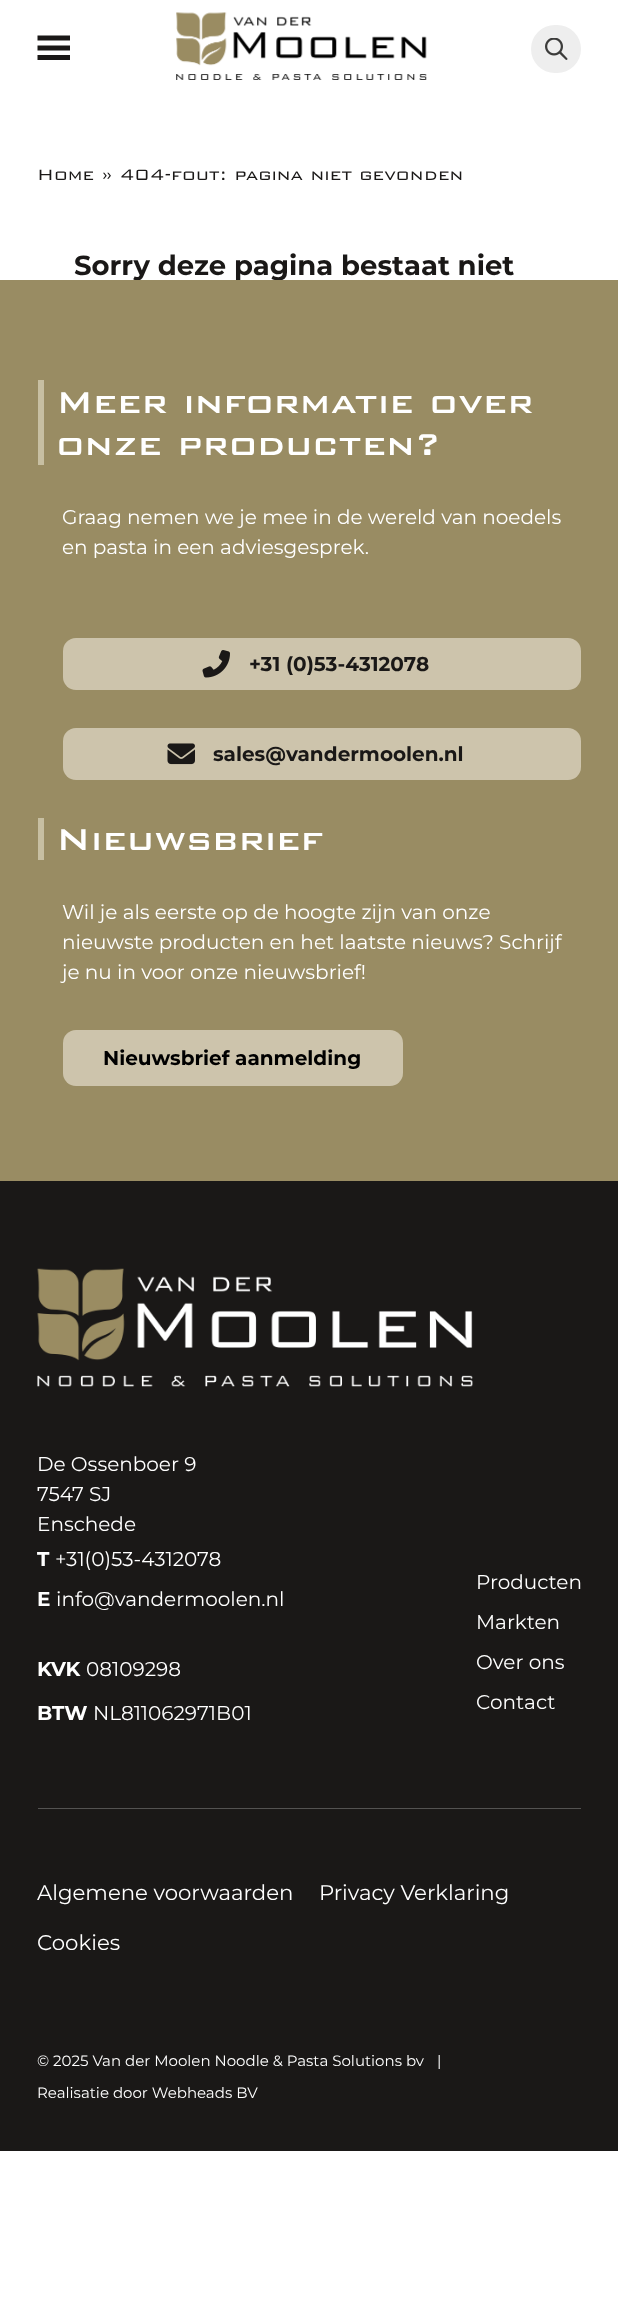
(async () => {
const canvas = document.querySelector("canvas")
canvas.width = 618
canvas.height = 2309
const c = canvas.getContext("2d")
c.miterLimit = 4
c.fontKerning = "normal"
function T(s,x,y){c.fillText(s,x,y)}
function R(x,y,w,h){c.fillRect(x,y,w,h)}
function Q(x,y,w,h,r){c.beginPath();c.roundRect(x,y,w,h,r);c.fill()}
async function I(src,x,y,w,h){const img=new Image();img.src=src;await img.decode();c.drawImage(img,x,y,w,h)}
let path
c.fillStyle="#fff"
R(0,0,618,2309)
c.fillStyle="#1a1817"
path = new Path2D("M70 40.5v-5h-32.5v5zm0 10v-5h-32.5v5zm0 9.5v-5h-32.5v5z")
c.fill(path)
await I("1.png",176,12,251,68)
c.fillStyle="#eee"
Q(531,25,50,48,24)
await I("2.png",545,38,23,22)
c.font="300 20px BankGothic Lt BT"
c.fillStyle="#1a1817"
T("Home » 404-fout: pagina niet gevonden",37,180)
c.font="bold 27.5px Montserrat"
T("Sorry deze pagina bestaat niet",74,275)
c.fillStyle="#998c63"
R(0,280,618,901)
c.fillStyle="#c7bfa2"
R(38,380,6,85)
c.font="500 40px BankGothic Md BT"
c.fillStyle="#fff"
T("Meer informatie over",56,413)
T("onze producten?",56,455)
c.font="20px Montserrat"
T("Graag nemen we je mee in de wereld van noedels",62,524)
T("en pasta in een adviesgesprek.",62,554)
c.fillStyle="#cdc4ac"
Q(63,638,518,52,13)
await I("3.png",202,650,28,28)
c.font="bold 20px Montserrat"
c.fillStyle="#1a1817"
T("+31 (0)53-4312078",249,671)
c.fillStyle="#cdc4ac"
Q(63,728,518,52,13)
await I("4.png",167,743,28,22)
c.fillStyle="#1a1817"
T("sales@vandermoolen.nl",213,761)
c.fillStyle="#c7bfa2"
R(38,818,6,42)
c.font="500 40px BankGothic Md BT"
c.fillStyle="#fff"
T("Nieuwsbrief",56,850)
c.font="20px Montserrat"
T("Wil je als eerste op de hoogte zijn van onze",62,919)
T("nieuwste producten en het laatste nieuws? Schrijf",62,949)
T("je nu in voor onze nieuwsbrief!",62,979)
c.fillStyle="#cdc4ac"
Q(63,1030,340,56,13)
c.font="bold 20px Montserrat"
c.fillStyle="#000"
T("Nieuwsbrief aanmelding",103,1065)
c.fillStyle="#1a1817"
R(0,1181,618,970)
await I("5.png",37,1268,436,119)
c.font="20px Montserrat"
c.fillStyle="#fff"
T("De Ossenboer 9",37,1471)
T("7547 SJ",37,1501)
T("Enschede",37,1531)
c.font="bold 20px Montserrat"
T("T",37,1566)
c.font="20px Montserrat"
T("+31(0)53-4312078",55,1566)
c.font="bold 20px Montserrat"
T("E",37,1606)
c.font="20px Montserrat"
T("info@vandermoolen.nl",56,1606)
c.font="bold 20px Montserrat"
T("KVK",37,1676)
c.font="20px Montserrat"
T("08109298",86,1676)
c.font="bold 20px Montserrat"
T("BTW",37,1720)
c.font="20px Montserrat"
T("NL811062971B01",93,1720)
T("Producten",476,1589)
T("Markten",476,1629)
T("Over ons",476,1669)
T("Contact",476,1709)
c.fillStyle="#535251"
R(38,1808,543,1)
c.font="21.25px Montserrat"
c.fillStyle="#fff"
T("Algemene voorwaarden",37,1900)
T("Privacy Verklaring",319,1900)
T("Cookies",37,1950)
c.font="15px Montserrat"
T("© 2025 Van der Moolen Noodle & Pasta Solutions bv",37,2066)
T("|",437,2066)
T("Realisatie door Webheads BV",37,2098)
})()
